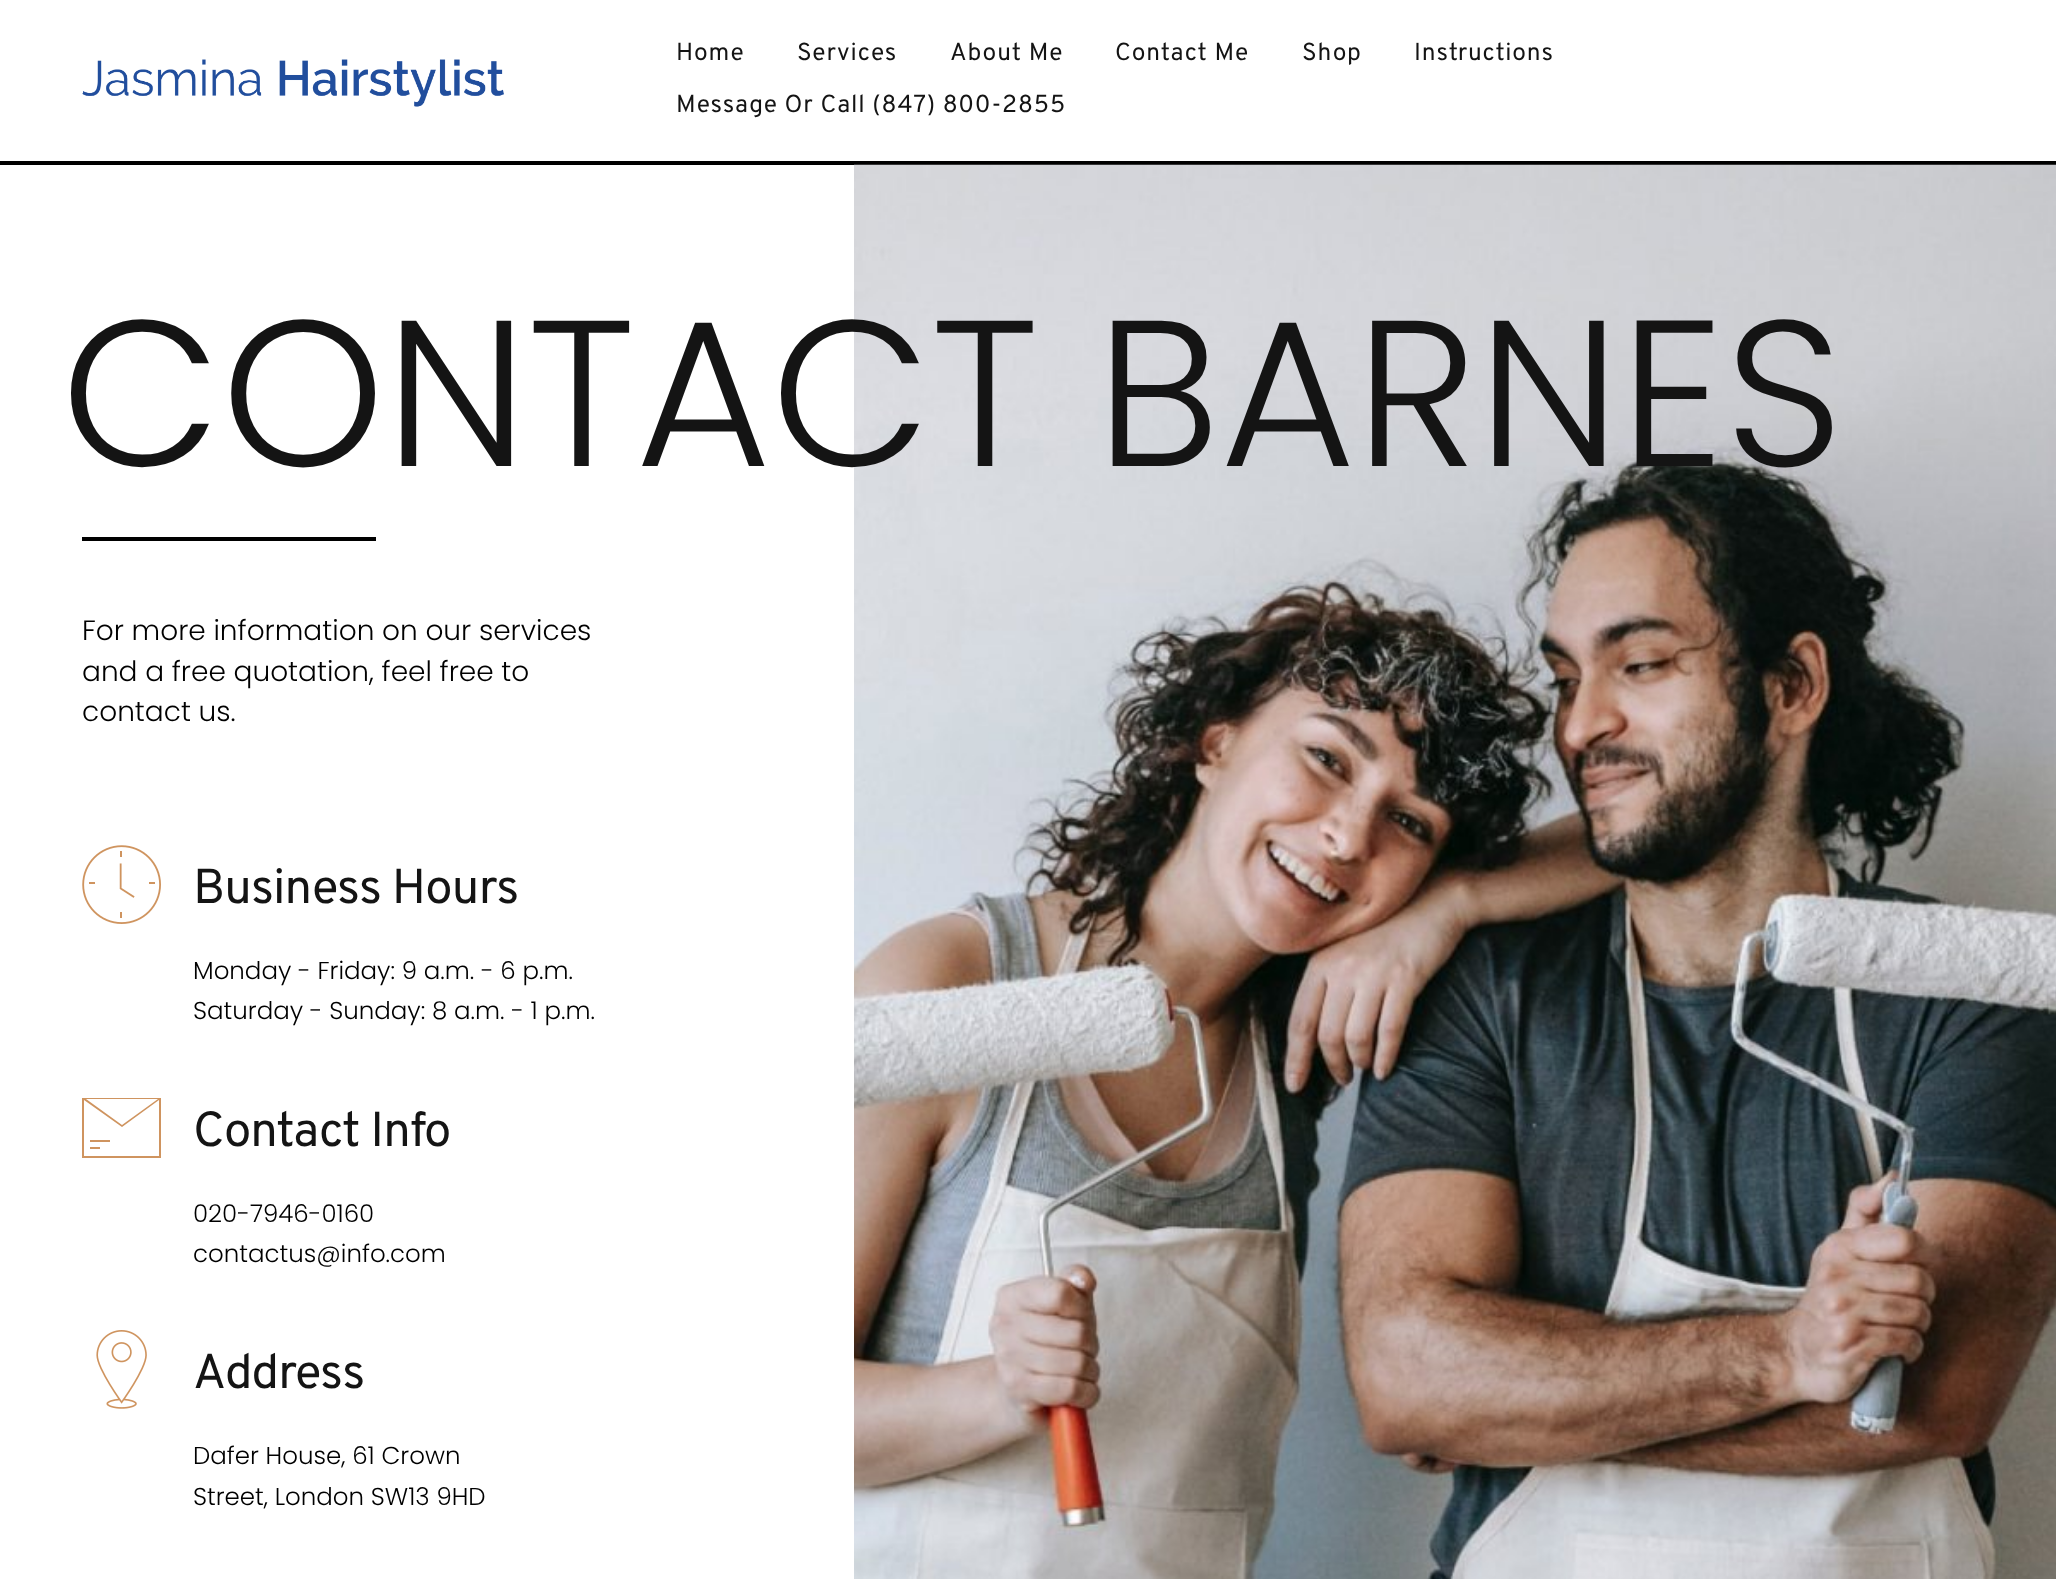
(async () => {
const canvas = document.querySelector("canvas")
canvas.width = 2056
canvas.height = 1579
const c = canvas.getContext("2d")
c.miterLimit = 4
c.fontKerning = "normal"
function T(s,x,y){c.fillText(s,x,y)}
function R(x,y,w,h){c.fillRect(x,y,w,h)}
async function I(src,x,y,w,h){const img=new Image();img.src=src;await img.decode();c.drawImage(img,x,y,w,h)}
let path
c.fillStyle="#fff"
R(0,0,2056,1579)
await I("1.png",82,59,422,48)
c.letterSpacing="0.9px"
c.font="24.5px Overpass"
c.fillStyle="#141414"
T("Home",676,60)
T("Services",797,60)
T("About Me",950,60)
T("Contact Me",1115,60)
T("Shop",1302,60)
T("Instructions",1414,60)
T("Message Or Call (847) 800-2855",676,112)
c.fillStyle="#000"
R(0,161,2056,4)
await I("2.png",854,164,1202,1415)
c.letterSpacing="0px"
c.font="300 207.75px Poppins"
c.fillStyle="#141414"
T("CONTACT BARNES",61,466)
c.fillStyle="#000"
R(82,537,294,4)
c.font="300 28px Poppins"
T("For more information on our services",82,640)
T("and a free quotation, feel free to",82,681)
T("contact us.",82,721)
await I("3.png",82,845,79,79)
c.letterSpacing="-0.9px"
c.font="49px Overpass"
c.fillStyle="#141414"
T("Business Hours",193,903)
c.letterSpacing="0px"
c.font="300 24.5px Poppins"
c.fillStyle="#000"
T("Monday - Friday: 9 a.m. - 6 p.m.",193,979)
T("Saturday - Sunday: 8 a.m. - 1 p.m.",193,1019)
c.fillStyle="#cf945f"
path = new Path2D("M82 1098v60h79v-60zm76 1l-36 26l-36-26zm-74 57v-56l38 27l37-27v56z")
c.fill(path)
R(90,1140,20,2)
R(90,1147,10,2)
c.letterSpacing="-0.9px"
c.font="49px Overpass"
c.fillStyle="#141414"
T("Contact Info",193,1146)
c.letterSpacing="0px"
c.font="300 24.5px Poppins"
c.fillStyle="#000"
T("020-7946-0160",193,1222)
T("contactus@info.com",193,1262)
await I("4.png",96,1330,51,79)
c.letterSpacing="-0.9px"
c.font="49px Overpass"
c.fillStyle="#141414"
T("Address",193,1388)
c.letterSpacing="0px"
c.font="300 24.5px Poppins"
c.fillStyle="#000"
T("Dafer House, 61 Crown",193,1464)
T("Street, London SW13 9HD",193,1505)
})()
